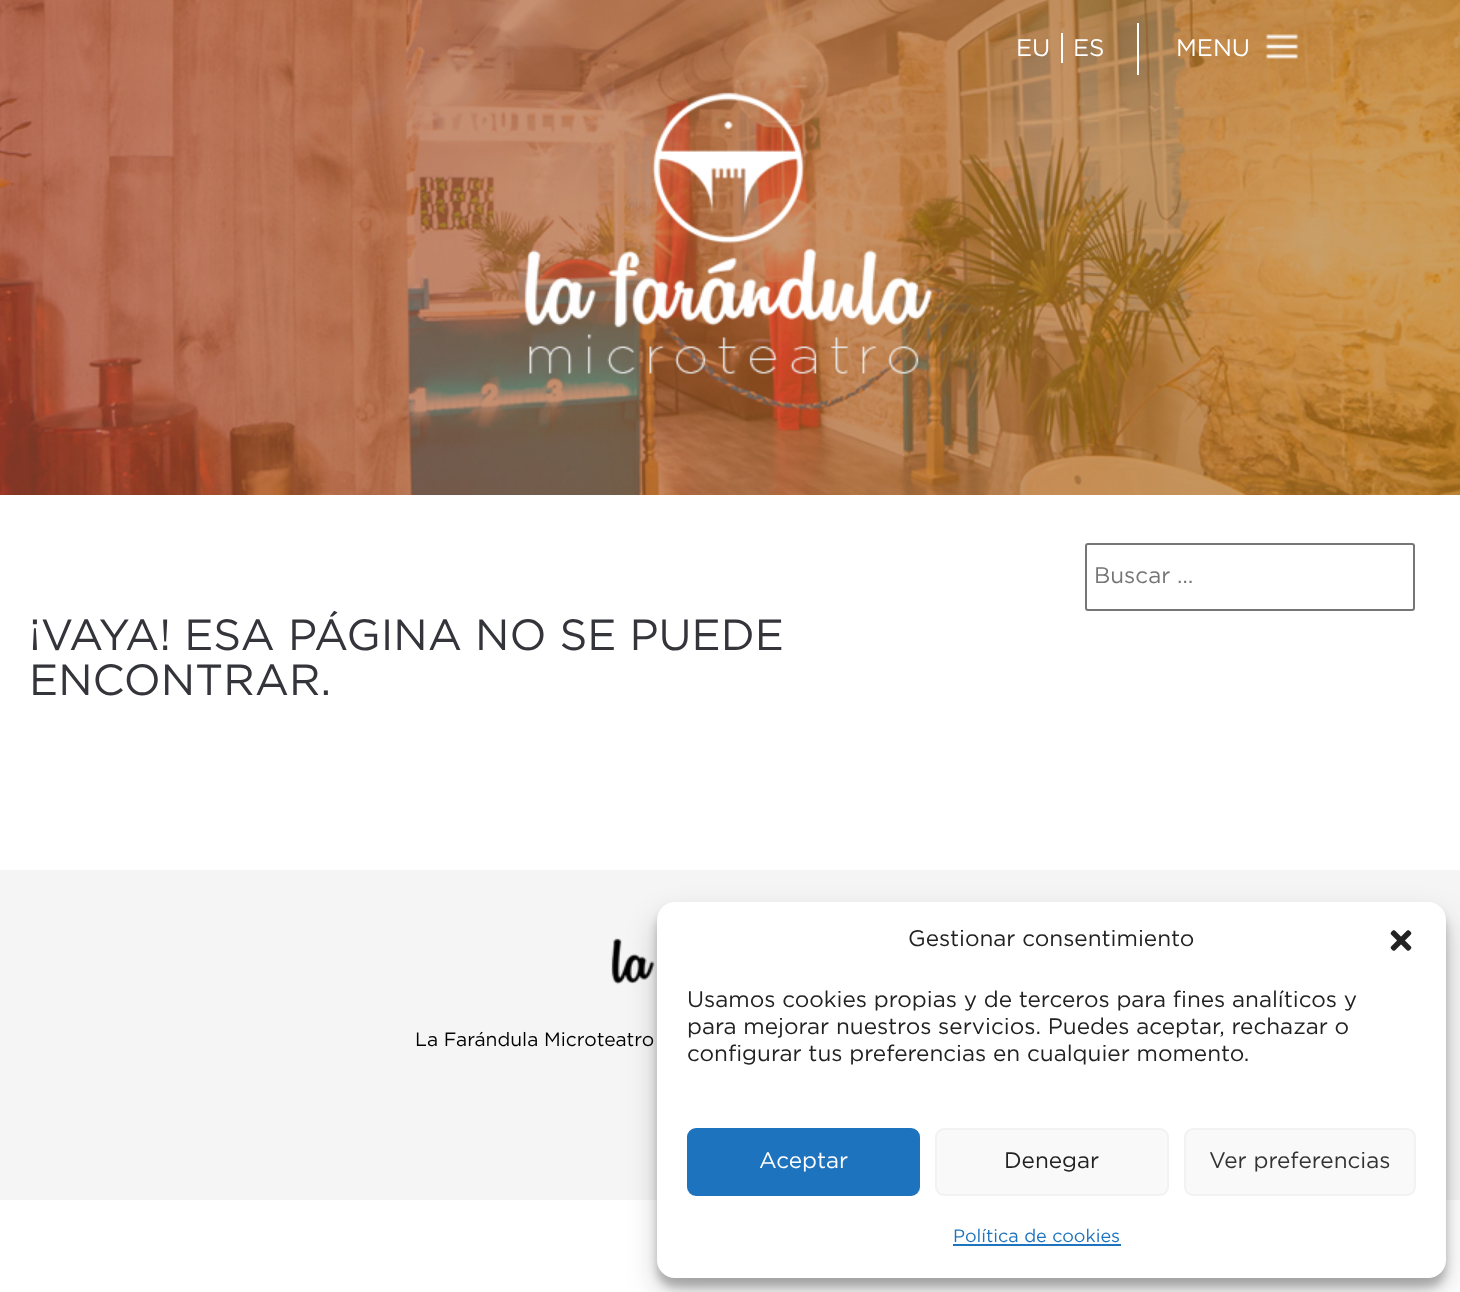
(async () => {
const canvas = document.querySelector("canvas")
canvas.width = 1460
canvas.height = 1292
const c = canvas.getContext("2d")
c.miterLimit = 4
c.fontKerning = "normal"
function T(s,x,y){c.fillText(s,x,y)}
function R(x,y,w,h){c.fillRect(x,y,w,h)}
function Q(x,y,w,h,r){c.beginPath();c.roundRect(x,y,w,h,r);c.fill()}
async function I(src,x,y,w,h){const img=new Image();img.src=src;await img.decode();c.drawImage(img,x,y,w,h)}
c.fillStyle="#fff"
R(0,0,1460,1292)
await I("1.png",0,0,1460,495)
c.font="24px Gotham"
T("EU",1016,56)
R(1061,33,2,30)
T("ES",1073,56)
R(1137,23,2,52)
await I("2.png",1265,34,34,25)
T("MENU",1176,56)
await I("3.png",524,92,408,282)
c.beginPath()
c.roundRect(1086,544,328,66,2)
c.strokeStyle="#767676"
c.lineWidth=2
c.stroke()
c.font="22.5px Gotham"
c.fillStyle="#757575"
T("Buscar …",1094,583)
c.font="43.5px Gotham"
c.fillStyle="#34343b"
T("¡VAYA! ESA PÁGINA NO SE PUEDE",29,650)
T("ENCONTRAR.",29,695)
c.fillStyle="#f5f5f5"
R(0,870,1460,330)
await I("4.png",611,938,44,47)
c.font="19.25px Gotham"
c.fillStyle="#000"
T("La Farándula Microteatro",415,1046)
c.fillStyle="#0000003b"
c.filter="blur(4.5px)"
c.beginPath()
c.roundRect(657,911,789,376,18)
c.fill()
c.filter="none"
c.fillStyle="#00000030"
c.filter="blur(15px)"
c.beginPath()
c.roundRect(657,917,789,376,18)
c.fill()
c.filter="none"
c.fillStyle="#fff"
Q(657,902,789,376,18)
c.font="22.5px Gotham"
c.fillStyle="#222"
T("Gestionar consentimiento",908,946)
await I("5.png",1390,930,22,21)
T("Usamos cookies propias y de terceros para fines analíticos y",687,1007)
T("para mejorar nuestros servicios. Puedes aceptar, rechazar o",687,1034)
T("configurar tus preferencias en cualquier momento.",687,1061)
c.fillStyle="#1e73be"
c.beginPath()
c.roundRect(688,1129,231,66,8)
c.fill()
c.strokeStyle="#1e73be"
c.stroke()
c.fillStyle="#fff"
T("Aceptar",759,1168)
c.fillStyle="#f9f9f9"
c.beginPath()
c.roundRect(936,1129,232,66,8)
c.fill()
c.strokeStyle="#f2f2f2"
c.stroke()
c.fillStyle="#222"
T("Denegar",1004,1168)
c.fillStyle="#f9f9f9"
c.beginPath()
c.roundRect(1185,1129,230,66,8)
c.fill()
c.stroke()
c.fillStyle="#333"
T("Ver preferencias",1209,1168)
c.font="18px Gotham"
c.fillStyle="#1e73be"
T("Política de cookies",953,1242)
R(953,1244,168,2)
})()
